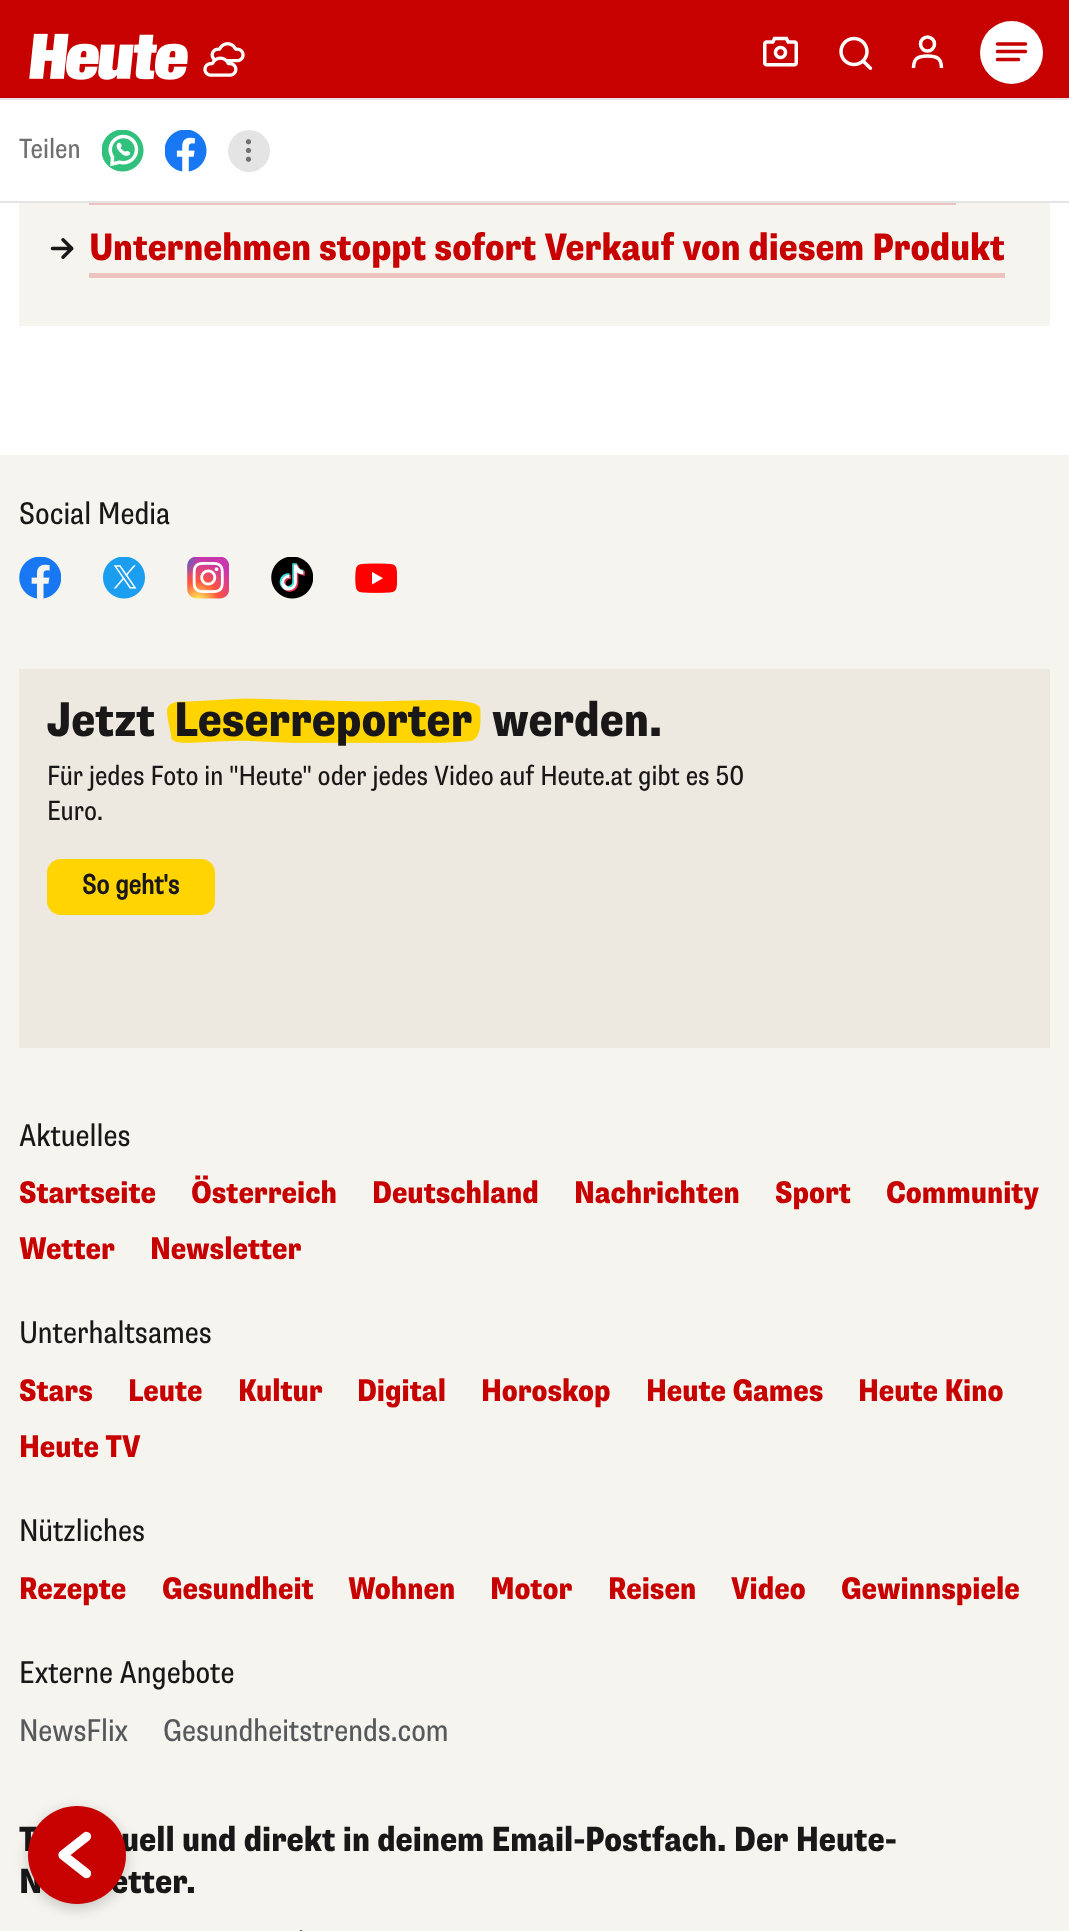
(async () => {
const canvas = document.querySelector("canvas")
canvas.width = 1069
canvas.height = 1931
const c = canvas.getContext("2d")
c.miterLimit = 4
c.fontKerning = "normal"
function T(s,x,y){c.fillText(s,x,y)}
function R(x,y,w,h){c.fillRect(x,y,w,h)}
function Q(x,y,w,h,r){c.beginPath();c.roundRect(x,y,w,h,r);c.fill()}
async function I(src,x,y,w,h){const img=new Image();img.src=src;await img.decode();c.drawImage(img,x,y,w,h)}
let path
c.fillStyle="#fff"
R(0,0,1069,1931)
c.fillStyle="#c70000"
R(0,0,1069,98)
await I("1.png",29,33,159,47)
await I("2.png",203,42,42,35)
await I("3.png",763,36,35,31)
await I("4.png",839,36,34,34)
path = new Path2D("M941.5 68c0-9.5-4.5-12-14-12c-9.5 0-14 2.5-14 12")
c.strokeStyle="#fff"
c.lineWidth=3.5
c.stroke(path)
c.beginPath()
c.arc(927.5,44,7,0,7)
c.stroke()
c.fillStyle="#fff"
c.beginPath()
c.arc(1011.5,52.5,31.5,0,7)
c.fill()
path = new Path2D("M1025.5 44h-28m28 7.5h-28m21 8h-21")
c.strokeStyle="#c70000"
c.lineCap="round"
c.stroke(path)
c.fillStyle="#e4e4e4"
R(0,98,1069,2)
R(0,201,1069,2)
c.font="28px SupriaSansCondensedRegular"
c.fillStyle="#707070"
T("Teilen",19,158)
await I("5.png",102,130,42,42)
await I("6.png",165,130,42,42)
c.fillStyle="#e4e4e4"
c.beginPath()
c.arc(249,151,21,0,7)
c.fill()
await I("7.png",245,139,7,23)
c.fillStyle="#f6f4ef"
R(19,203,1031,123)
c.fillStyle="#edc3bf"
R(89,203,867,2)
await I("8.png",50,238,24,21)
c.font="800 38.5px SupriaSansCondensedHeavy"
c.fillStyle="#c70000"
T("Unternehmen stoppt sofort Verkauf von diesem Produkt",89,260)
c.fillStyle="#edc3bf"
R(89,273,916,5)
c.fillStyle="#f6f4ef"
R(0,455,1069,1476)
c.font="31.5px SupriaSansCondensedRegular"
c.fillStyle="#191717"
T("Social Media",19,524)
await I("9.png",19,557,42,42)
await I("10.png",103,557,42,42)
await I("11.png",187,557,42,42)
await I("12.png",271,557,42,42)
await I("13.png",355,563,42,30)
c.fillStyle="#ede9e0"
R(19,669,1031,379)
c.font="800 49px SupriaSansCondensedHeavy"
c.fillStyle="#191717"
T("Jetzt",47,736)
await I("14.png",167,698,314,45)
T("werden.",492,736)
T("Leserreporter",174,736)
c.font="28px SupriaSansCondensedRegular"
T("Für jedes Foto in \"Heute\" oder jedes Video auf Heute.at gibt es 50",47,785)
T("Euro.",47,820)
c.fillStyle="#ffd400"
Q(47,859,168,56,14)
c.font="bold 28px SupriaSansCondensedRegular"
c.fillStyle="#191717"
T("So geht's",82,894)
c.font="31.5px SupriaSansCondensedRegular"
T("Aktuelles",19,1146)
c.font="800 31.5px SupriaSansCondensedHeavy"
c.fillStyle="#c70000"
T("Startseite",19,1203)
T("Österreich",191,1203)
T("Deutschland",372,1203)
T("Nachrichten",574,1203)
T("Sport",775,1203)
T("Community",886,1203)
T("Wetter",19,1259)
T("Newsletter",150,1259)
c.font="31.5px SupriaSansCondensedRegular"
c.fillStyle="#191717"
T("Unterhaltsames",19,1343)
c.font="800 31.5px SupriaSansCondensedHeavy"
c.fillStyle="#c70000"
T("Stars",19,1401)
T("Leute",128,1401)
T("Kultur",238,1401)
T("Digital",357,1401)
T("Horoskop",481,1401)
T("Heute Games",646,1401)
T("Heute Kino",858,1401)
T("Heute TV",19,1457)
c.font="31.5px SupriaSansCondensedRegular"
c.fillStyle="#191717"
T("Nützliches",19,1541)
c.font="800 31.5px SupriaSansCondensedHeavy"
c.fillStyle="#c70000"
T("Rezepte",19,1599)
T("Gesundheit",162,1599)
T("Wohnen",348,1599)
T("Motor",490,1599)
T("Reisen",608,1599)
T("Video",731,1599)
T("Gewinnspiele",841,1599)
c.font="31.5px SupriaSansCondensedRegular"
c.fillStyle="#191717"
T("Externe Angebote",19,1683)
c.fillStyle="#56595b"
T("NewsFlix",19,1741)
T("Gesundheitstrends.com",163,1741)
c.font="800 35px SupriaSansCondensedHeavy"
c.fillStyle="#191717"
T("T",19,1851)
T("uell und direkt in deinem Email-Postfach. Der Heute-",121,1851)
T("N",19,1893)
T("etter.",111,1893)
await I("15.png",299,1930,4,1)
c.fillStyle="#00000033"
c.filter="blur(7px)"
c.beginPath()
c.roundRect(28,1810,98,98,49)
c.fill()
c.filter="none"
c.fillStyle="#c70000"
c.beginPath()
c.arc(77,1855,49,0,7)
c.fill()
path = new Path2D("M86.5 1836.5l-23.5 18.5l23.5 18.5")
c.strokeStyle="#fff"
c.lineWidth=9.3
c.lineJoin="round"
c.stroke(path)
})()
